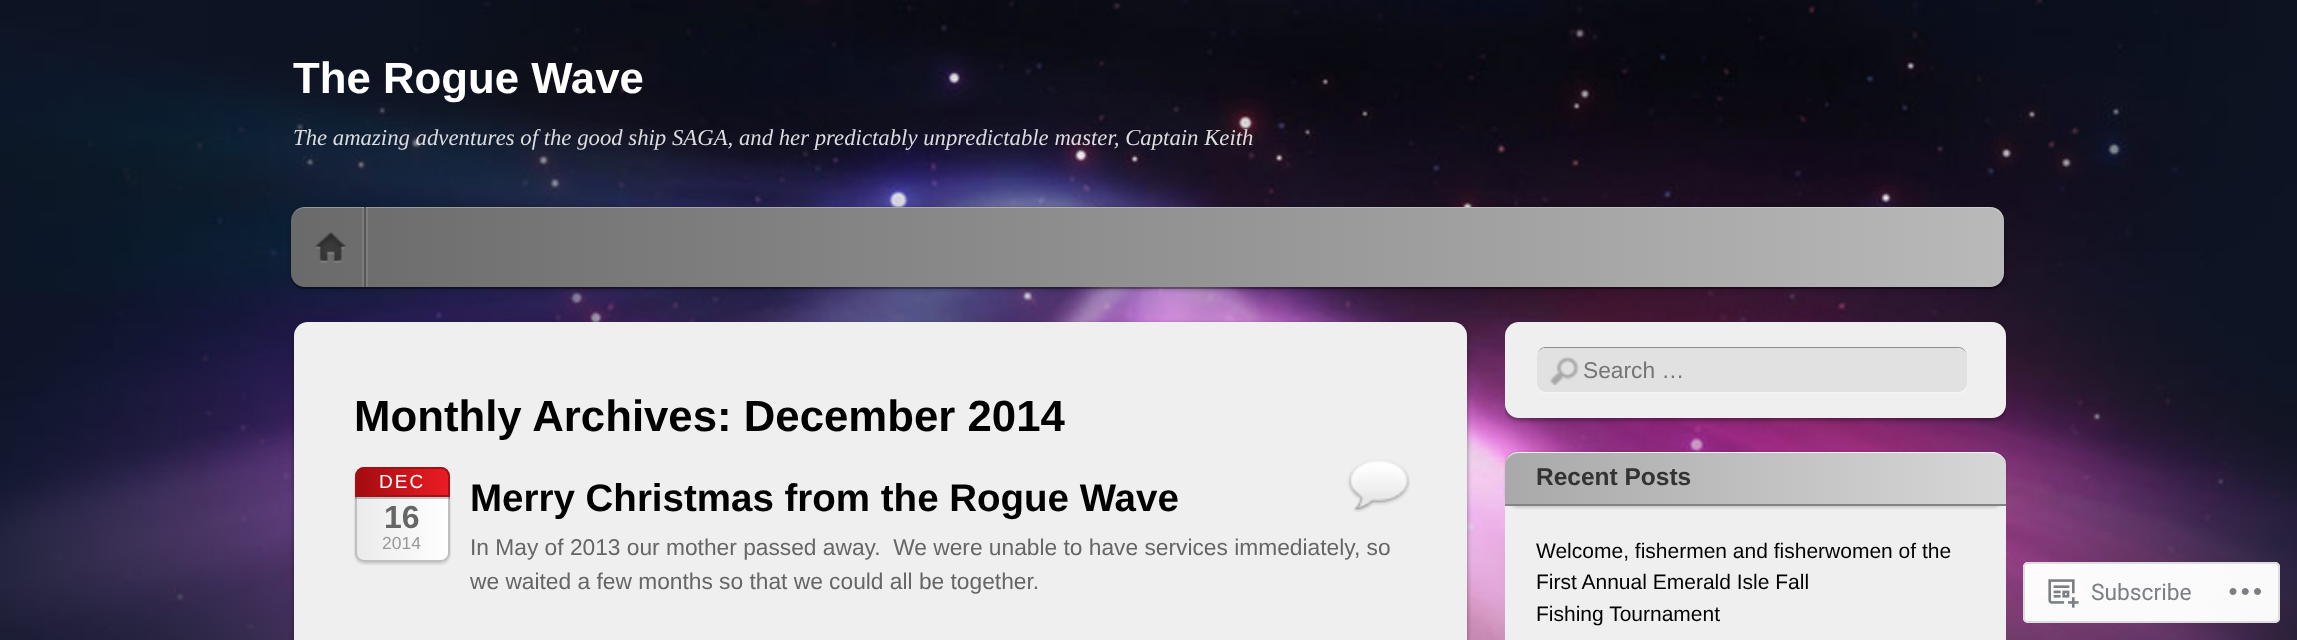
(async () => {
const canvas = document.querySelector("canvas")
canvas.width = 2297
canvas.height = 640
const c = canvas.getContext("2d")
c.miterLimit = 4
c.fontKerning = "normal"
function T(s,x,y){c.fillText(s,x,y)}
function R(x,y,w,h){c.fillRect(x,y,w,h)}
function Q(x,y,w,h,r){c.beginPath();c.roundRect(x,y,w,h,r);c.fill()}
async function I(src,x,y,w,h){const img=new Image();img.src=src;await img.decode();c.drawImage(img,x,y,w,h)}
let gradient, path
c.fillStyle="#fff"
R(0,0,2297,640)
await I("1.png",0,0,2297,640)
c.font="bold 43.75px Liberation Sans"
T("The Rogue Wave",293,93)
c.font="italic 22.75px Liberation Serif"
c.fillStyle="#dcdcdf"
T("The amazing adventures of the good ship SAGA, and her predictably unpredictable master, Captain Keith",293,145)
c.fillStyle="#0000004d"
c.filter="blur(2.5px)"
c.beginPath()
c.roundRect(291,208,1713,81,14)
c.fill()
c.filter="none"
path = new Path2D("M291 277c1 7 7 12 14 12h1685c8 0 14-6 14-14v-56v54c0 8-7 14-14 14h-1686c-6 0-11-4-13-10z")
c.fill(path)
gradient = c.createLinearGradient(2004,247,291,247)
gradient.addColorStop(0,"#b9b9b9")
gradient.addColorStop(1,"#6a6a6a")
c.fillStyle = gradient
Q(291,207,1713,80,14)
c.fillStyle="#ffffff4d"
path = new Path2D("M304 208h1686c7 0 14 7 14 14v-1c0-8-6-14-14-14h-1685c-5 0-10 3-12 7c2-3 7-6 11-6z")
c.fill(path)
c.fillStyle="#ffffff1a"
R(366,207,2,80)
R(362,207,2,80)
c.fillStyle="#575757"
R(364,207,2,80)
await I("2.png",315,232,31,31)
c.fillStyle="#00000066"
c.filter="blur(2.5px)"
c.beginPath()
c.roundRect(294,324,1173,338,14)
c.fill()
c.filter="none"
c.fillStyle="#efefef"
Q(294,322,1173,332,14)
c.font="bold 43.75px Liberation Sans"
c.fillStyle="#000"
T("Monthly Archives: December 2014",354,431)
c.fillStyle="#00000026"
c.filter="blur(1px)"
c.beginPath()
c.roundRect(355,469,95,95,9)
c.fill()
c.filter="none"
c.save()
c.beginPath()
c.roundRect(355,467,95,95,9)
c.clip()
gradient = c.createLinearGradient(448,515,357,515)
gradient.addColorStop(0,"#fff")
gradient.addColorStop(1,"#ecebeb")
c.fillStyle = gradient
R(357,467,91,95)
c.restore()
c.beginPath()
c.roundRect(356,468,93,93,8)
c.strokeStyle="#bebebe"
c.lineWidth=2
c.stroke()
c.fillStyle="#00000033"
path = new Path2D("M355 476v23h95v-23v21h-95z")
c.fill(path)
c.save()
c.beginPath()
c.roundRect(355,467,95,30,[9,9,0,0])
c.clip()
gradient = c.createLinearGradient(448,482,357,482)
gradient.addColorStop(0,"#eb1c24")
gradient.addColorStop(1,"#a30c10")
c.fillStyle = gradient
R(357,467,91,28)
c.restore()
c.beginPath()
c.roundRect(356,468,93,28,[8,8,0,0])
c.strokeStyle="#a11216"
c.stroke()
c.letterSpacing="2px"
c.font="19px Liberation Sans"
c.fillStyle="#fff"
T("DEC",379,488)
c.letterSpacing="0px"
c.font="bold 32px Liberation Sans"
c.fillStyle="#666"
T("16",384,528)
c.font="17.5px Liberation Sans"
c.fillStyle="#999"
T("2014",382,549)
c.font="bold 38.5px Liberation Sans"
c.fillStyle="#000"
T("Merry Christmas from the Rogue Wave",470,511)
await I("3.png",1347,459,63,53)
c.font="22.75px Liberation Sans"
c.fillStyle="#666"
T("In May of 2013 our mother passed away.  We were unable to have services immediately, so",470,555)
T("we waited a few months so that we could all be together.",470,589)
c.save()
c.beginPath()
c.rect(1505,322,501,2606)
c.clip()
c.fillStyle="#00000066"
c.filter="blur(2.5px)"
c.beginPath()
c.roundRect(1505,324,501,96,14)
c.fill()
c.filter="none"
c.restore()
c.fillStyle="#efefef"
Q(1505,322,501,96,14)
c.fillStyle="#f4f4f4"
path = new Path2D("M1537 387c1 4 5 7 9 7h412c5 0 9-4 9-9v-2c0 5-4 9-9 9h-413c-3 0-7-2-8-5z")
c.fill(path)
c.fillStyle="#8f8f8f"
path = new Path2D("M1546 347c-4 0-7 2-8 6c1-3 4-5 7-5h413c5 0 9 4 9 9c0-5-3-10-9-10z")
c.fill(path)
c.fillStyle="#e1e1e1"
Q(1537,348,430,44,9)
await I("4.png",1550,357,29,28)
c.fillStyle="#757575"
T("Search …",1583,378)
c.save()
c.beginPath()
c.rect(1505,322,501,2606)
c.clip()
c.fillStyle="#00000066"
c.filter="blur(2.5px)"
c.beginPath()
c.roundRect(1505,455,501,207,14)
c.fill()
c.filter="none"
c.restore()
c.fillStyle="#efefef"
Q(1505,453,501,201,14)
c.fillStyle="#00000026"
c.filter="blur(1px)"
c.beginPath()
c.roundRect(1505,453,501,55,14)
c.fill()
c.filter="none"
gradient = c.createLinearGradient(2006,479,1505,479)
gradient.addColorStop(0,"#d7d7d7")
gradient.addColorStop(1,"#a9a9a9")
c.fillStyle = gradient
c.beginPath()
c.roundRect(1505,452,501,54,[14,14,0,0])
c.fill()
c.fillStyle="#f5f5f5"
path = new Path2D("M1519 452h473c5 0 14 5 14 11c-2-6-8-10-14-10h-473c-8 0-14 6-14 13c0-8 6-14 14-14z")
c.fill(path)
c.fillStyle="#848484"
R(1505,504,501,2)
c.font="bold 24.5px Liberation Sans"
c.fillStyle="#333"
T("Recent Posts",1536,485)
c.font="21px Liberation Sans"
c.fillStyle="#000"
T("Welcome, fishermen and fisherwomen of the",1536,558)
T("First Annual Emerald Isle Fall",1536,589)
T("Fishing Tournament",1536,621)
c.fillStyle="#fffffffa"
Q(2023,562,257,61,5)
c.beginPath()
c.roundRect(2024,563,255,59,4)
c.strokeStyle="#dcdcdefa"
c.stroke()
await I("5.png",2048,579,31,29)
c.font="22.75px Roboto"
c.fillStyle="#7b7f84"
T("Subscribe",2091,600)
await I("6.png",2229,588,32,7)
})()
